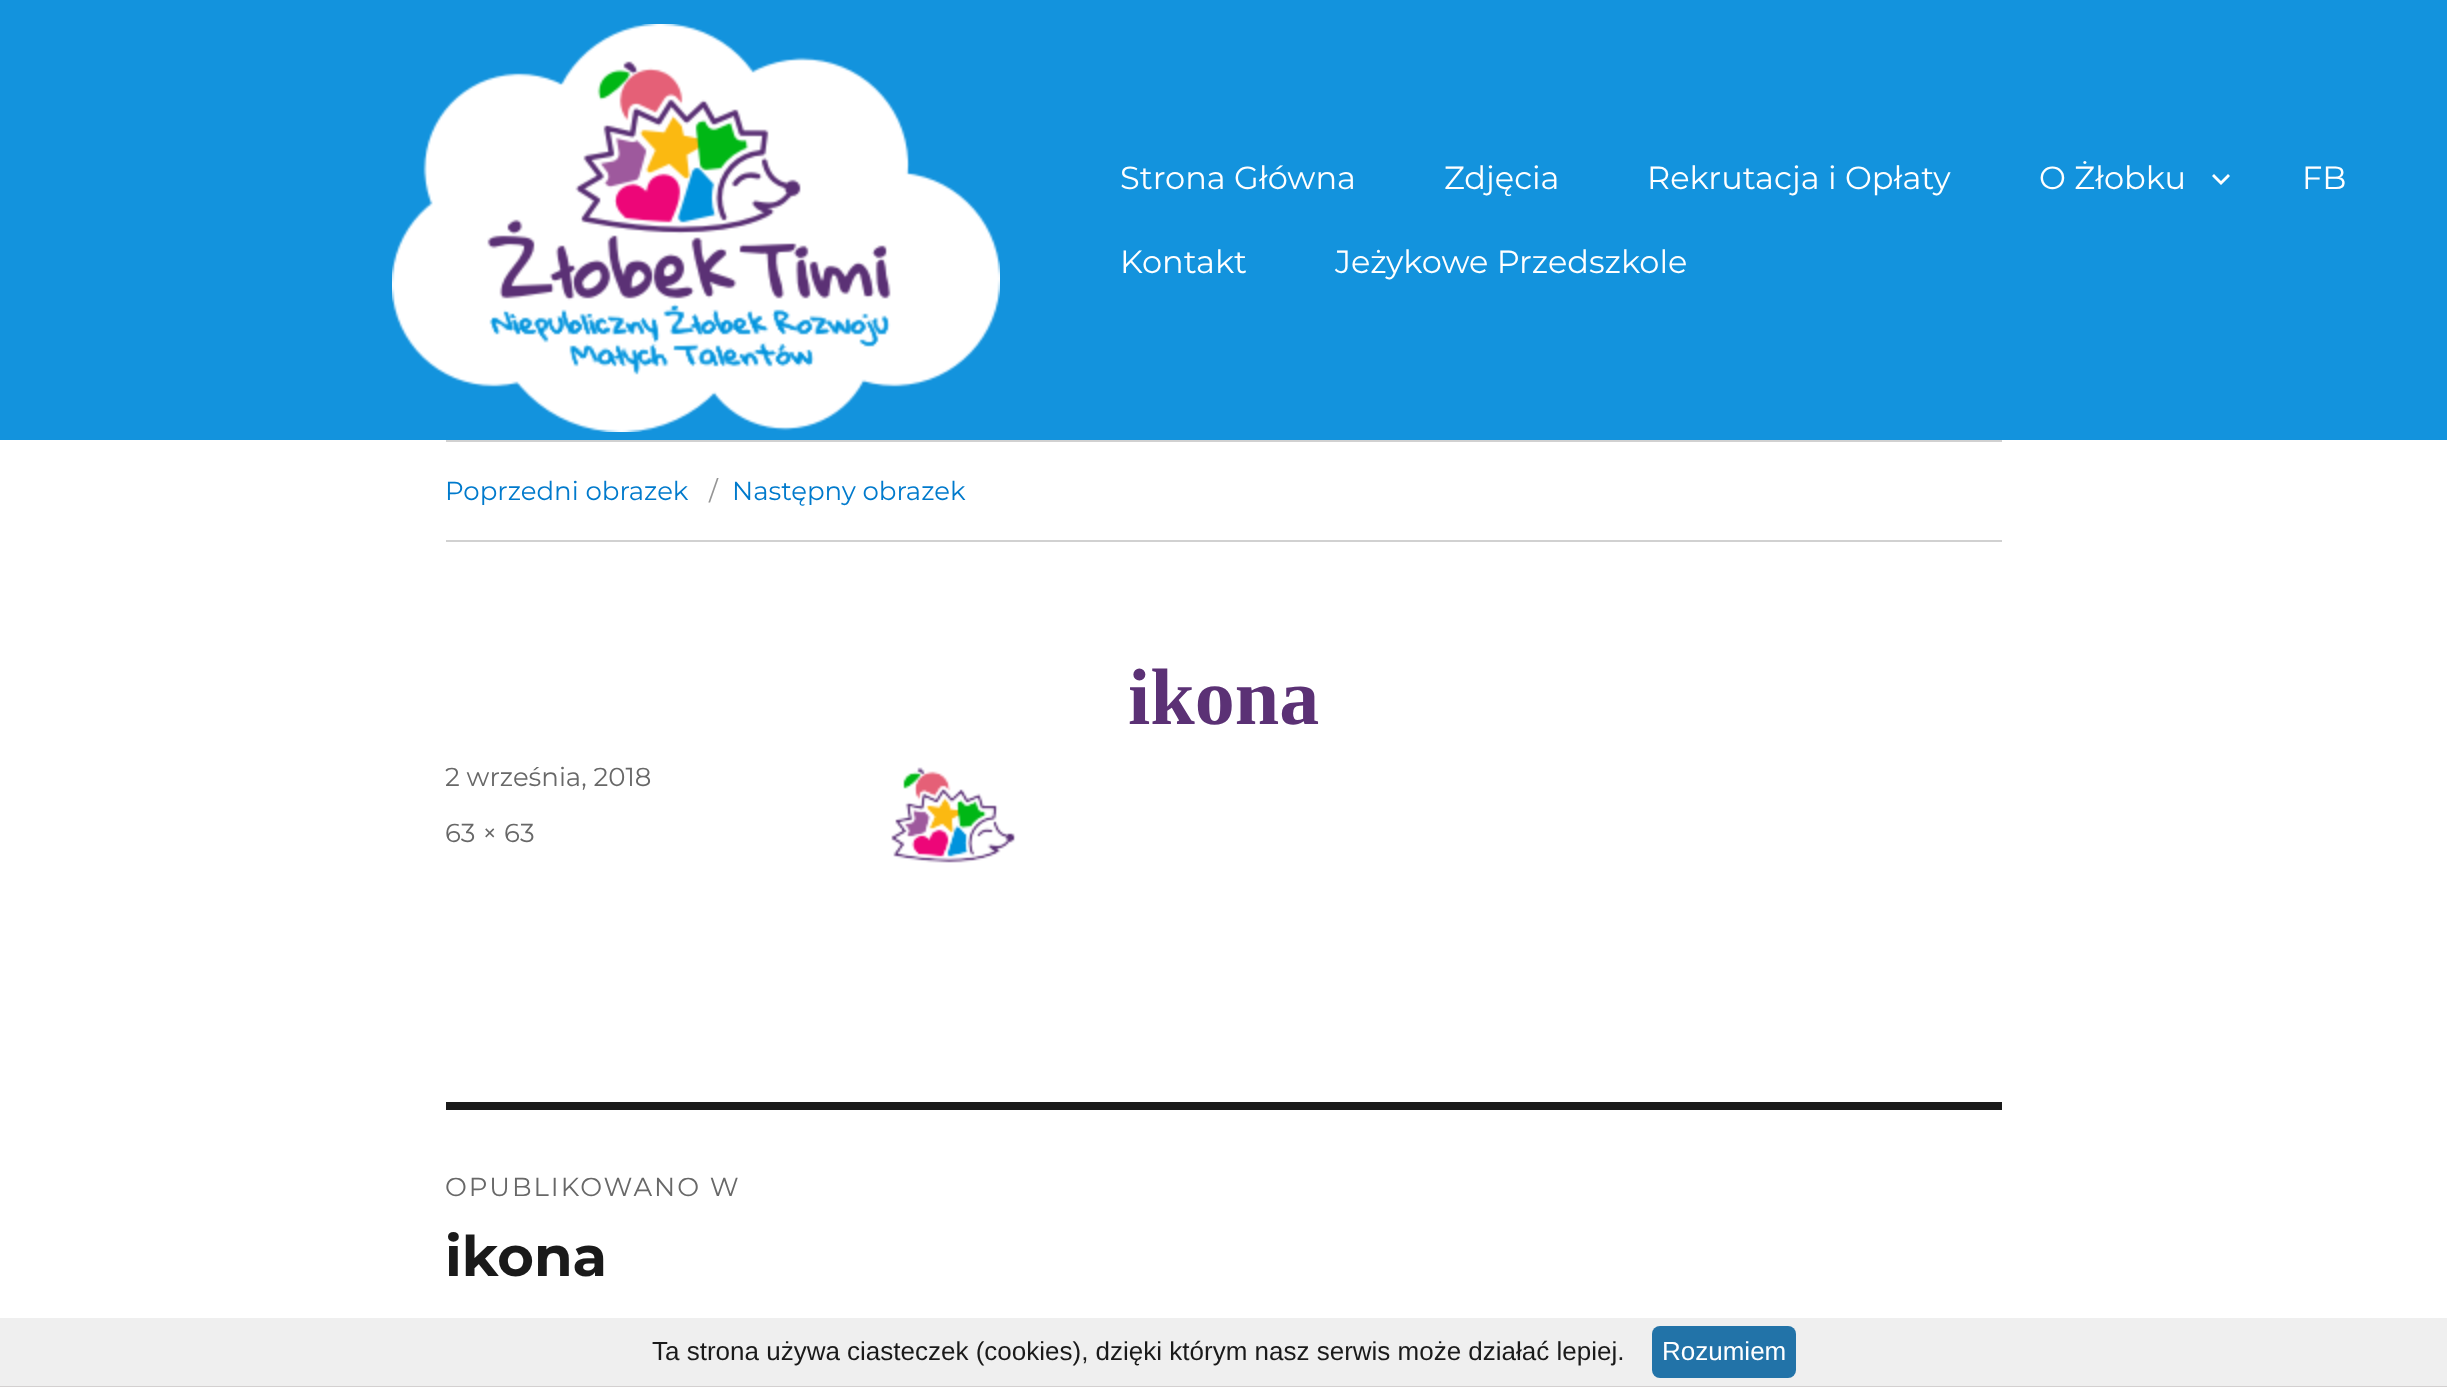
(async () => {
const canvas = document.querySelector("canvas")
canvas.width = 2447
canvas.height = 1387
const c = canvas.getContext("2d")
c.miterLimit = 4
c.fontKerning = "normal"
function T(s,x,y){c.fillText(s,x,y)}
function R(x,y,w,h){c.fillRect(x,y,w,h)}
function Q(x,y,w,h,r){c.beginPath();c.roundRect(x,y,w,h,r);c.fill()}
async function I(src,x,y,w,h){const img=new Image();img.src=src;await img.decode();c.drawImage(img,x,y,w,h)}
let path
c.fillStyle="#fff"
R(0,0,2447,1387)
c.fillStyle="#1393dd"
R(0,0,2447,440)
await I("1.png",392,24,608,408)
c.font="32px Montserrat"
c.fillStyle="#fff"
T("Strona Główna",1120,189)
T("Zdjęcia",1444,189)
T("Rekrutacja i Opłaty",1647,189)
T("O Żłobku",2039,189)
path = new Path2D("M2228 174l2 2l-9 9l-9-9l2-2l7 7z")
c.fill(path)
T("FB",2302,189)
T("Kontakt",1120,273)
T("Jeżykowe Przedszkole",1335,273)
c.fillStyle="#d1d1d1"
R(446,440,1556,2)
R(446,540,1556,2)
c.font="26px Montserrat"
c.fillStyle="#007acc"
T("Poprzedni obrazek",445,500)
c.fillStyle="#959595"
T("/",709,500)
c.fillStyle="#007acc"
T("Następny obrazek",732,500)
c.font="bold 80px Liberation Serif"
c.fillStyle="#5b3175"
T("ikona",1128,724)
c.font="26px Montserrat"
c.fillStyle="#686868"
T("2 września, 2018",445,786)
T("63 × 63",445,842)
await I("2.png",891,767,125,96)
c.fillStyle="#1a1a1a"
R(446,1102,1556,8)
c.letterSpacing="2px"
c.fillStyle="#686868"
T("OPUBLIKOWANO W",445,1196)
c.letterSpacing="0px"
c.font="bold 56px Montserrat"
c.fillStyle="#1a1a1a"
T("ikona",445,1276)
c.fillStyle="#efefef"
R(0,1318,2447,68)
c.fillStyle="#d3d0d0"
R(0,1386,2447,1)
c.font="26px Liberation Sans"
c.fillStyle="#1a1a1a"
T("Ta strona używa ciasteczek (cookies), dzięki którym nasz serwis może działać lepiej.",652,1360)
c.fillStyle="#2273a8"
Q(1652,1326,144,52,8)
c.fillStyle="#fff"
T("Rozumiem",1662,1360)
})()
